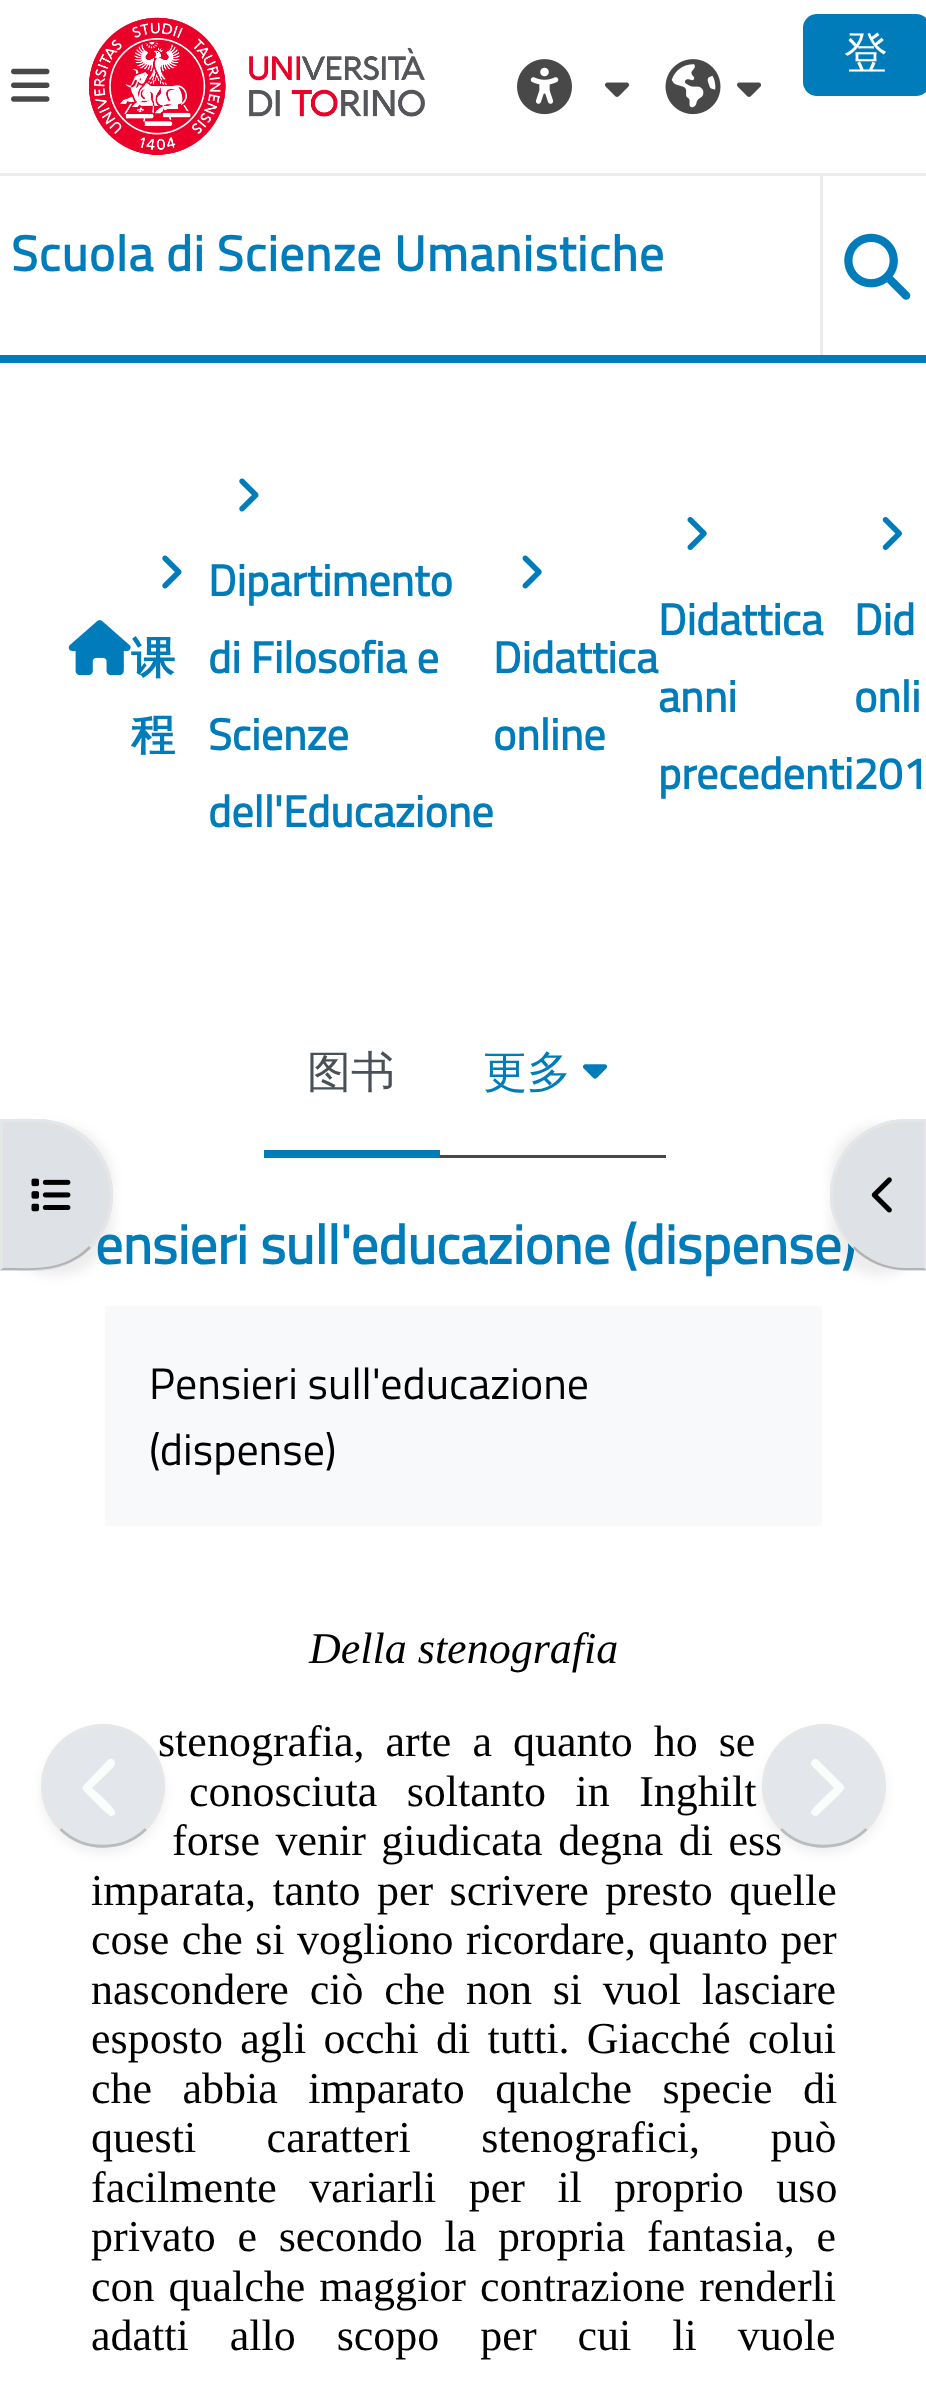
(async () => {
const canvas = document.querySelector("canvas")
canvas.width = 926
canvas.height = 2382
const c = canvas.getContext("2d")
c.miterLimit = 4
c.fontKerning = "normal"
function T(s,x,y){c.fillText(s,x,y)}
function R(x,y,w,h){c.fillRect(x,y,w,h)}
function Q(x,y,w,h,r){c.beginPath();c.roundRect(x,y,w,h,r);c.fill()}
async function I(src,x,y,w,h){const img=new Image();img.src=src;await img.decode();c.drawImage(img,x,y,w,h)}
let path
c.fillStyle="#fff"
R(0,0,926,2382)
c.fillStyle="#007cba"
R(0,355,926,8)
c.fillStyle="#ececec"
R(0,173,926,3)
await I("1.png",89,17,336,138)
c.fillStyle="#007cba"
Q(803,14,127,82,14)
c.font="500 44px WenQuanYi Zen Hei"
c.fillStyle="#fff"
T("登",844,68)
await I("2.png",517,59,55,56)
await I("3.png",605,82,25,15)
await I("4.png",665,59,56,56)
await I("3.png",737,82,25,15)
await I("5.png",11,68,39,34)
c.letterSpacing="1px"
c.font="bold 49.5px Titillium Web"
c.fillStyle="#007cba"
T("Scuola di Scienze Umanistiche",11,271)
c.fillStyle="#ececec"
R(820,176,3,179)
await I("6.png",844,233,67,67)
c.fillStyle="#00000012"
c.filter="blur(5.5px)"
c.beginPath()
c.roundRect(0,1125,113,151,76)
c.fill()
c.filter="none"
c.letterSpacing="0px"
c.font="bold 54.75px Titillium Web"
c.fillStyle="#007cba"
T("ensieri sull'educazione (dispense)",95,1264)
c.fillStyle="#dee2e6"
c.beginPath()
c.roundRect(0,1119,113,152,[0,76,76,0])
c.fill()
c.fillStyle="#e6e6e6"
path = new Path2D("M3 1122l-3-3c35 0 64-5 91 22l-3 3c-13-14-31-22-51-22z")
c.fill(path)
path = new Path2D("M113 1201c-2 19-10 35-22 47l-2-2c28-28 28-74-1-102l3-3c12 13 20 29 22 48z")
c.fill(path)
c.fillStyle="#b3b3b3"
path = new Path2D("M91 1248c-27 26-57 22-91 22l3-2c32 0 60 4 86-22z")
c.fill(path)
c.fillStyle="#e6e6e6"
path = new Path2D("M0 1119v151l3-2v-146z")
c.fill(path)
await I("7.png",31,1178,40,34)
await I("8.png",239,478,20,34)
c.font="bold 44px Titillium Web"
c.fillStyle="#007cba"
T("Dipartimento",208,596)
T("di Filosofia e",208,673)
T("Scienze",208,750)
T("dell'Educazione",208,827)
await I("9.png",687,517,20,33)
T("Didattica",658,635)
T("anni",658,712)
T("precedenti201",658,789)
await I("10.png",68,620,63,56)
await I("8.png",162,555,20,34)
c.font="bold 44px WenQuanYi Zen Hei"
T("课",131,673)
T("程",131,750)
await I("11.png",522,555,20,34)
c.font="bold 44px Titillium Web"
T("Didattica",493,673)
T("online",493,750)
await I("12.png",882,517,20,33)
T("Did",854,635)
T("onli",854,712)
R(264,1150,176,8)
c.font="500 44px WenQuanYi Zen Hei"
c.fillStyle="#495057"
T("图书",307,1087)
c.fillStyle="#484848"
R(440,1155,226,3)
c.fillStyle="#007cba"
T("更多",483,1087)
await I("13.png",583,1064,25,15)
c.fillStyle="#f8f9fa"
R(105,1306,717,220)
c.font="44px Titillium Web"
c.fillStyle="#000"
T("Pensieri sull'educazione",149,1399)
T("(dispense)",149,1465)
c.font="italic 44px Liberation Serif"
T("Della stenografia",309,1663)
c.wordSpacing="10px"
c.font="44px Liberation Serif"
T("stenografia, arte a quanto ho se",158,1756)
c.wordSpacing="18.5px"
T("conosciuta soltanto in Inghilt",189,1806)
c.wordSpacing="4.5px"
T("forse venir giudicata degna di ess",172,1855)
c.wordSpacing="5.5px"
T("imparata, tanto per scrivere presto quelle",91,1905)
c.wordSpacing="1.5px"
T("cose che si vogliono ricordare, quanto per",91,1954)
c.wordSpacing="9.75px"
T("nascondere ciò che non si vuol lasciare",91,2004)
c.wordSpacing="6.25px"
T("esposto agli occhi di tutti. Giacché colui",91,2053)
c.wordSpacing="19.5px"
T("che abbia imparato qualche specie di",91,2103)
c.wordSpacing="59.5px"
T("questi caratteri stenografici, può",91,2152)
c.wordSpacing="21.5px"
T("facilmente variarli per il proprio uso",91,2202)
c.wordSpacing="10.75px"
T("privato e secondo la propria fantasia, e",91,2251)
c.wordSpacing="3px"
T("con qualche maggior contrazione renderli",91,2301)
c.wordSpacing="30px"
T("adatti allo scopo per cui li vuole",91,2350)
c.save()
path = new Path2D("M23 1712h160v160h-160zm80 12c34 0 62 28 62 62c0 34-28 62-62 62c-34 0-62-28-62-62c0-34 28-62 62-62z")
c.clip(path,"evenodd")
c.fillStyle="#0000000f"
c.filter="blur(5.5px)"
c.beginPath()
c.roundRect(41,1730,124,124,62)
c.fill()
c.filter="none"
c.restore()
c.fillStyle="#dee2e6d9"
c.beginPath()
c.arc(103,1786,62,0,7)
c.fill()
path = new Path2D("M146 1829c-23.5 23-62.5 23-85.5 0")
c.strokeStyle="#b3b3b3d9"
c.lineWidth=2.8
c.stroke(path)
path = new Path2D("M60.5 1829c-11.5-11.5-18-27-18-43c0-53.5 65.5-80.5 103.5-42.5c8.5 8.5 14 19 16.5 31c4 19.5-2.5 40-16.5 54.5")
c.strokeStyle="#e6e6e6d9"
c.stroke(path)
c.fillStyle="#ffffffd9"
path = new Path2D("M84 1785c-4 3 1 7 4 10l16 16c3 2 6 7 10 4c1 0 2-2 1-3c0-4-19-21-23-24c4-4 23-21 23-24c1-4-4-7-7-4z")
c.fill(path)
c.save()
path = new Path2D("M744 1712h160v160h-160zm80 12c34 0 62 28 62 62c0 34-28 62-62 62c-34 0-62-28-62-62c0-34 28-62 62-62z")
c.clip(path,"evenodd")
c.fillStyle="#0000000f"
c.filter="blur(5.5px)"
c.beginPath()
c.roundRect(762,1730,124,124,62)
c.fill()
c.filter="none"
c.restore()
c.fillStyle="#dee2e6d9"
c.beginPath()
c.arc(824,1786,62,0,7)
c.fill()
path = new Path2D("M866.5 1829c-23.5 23-62.5 23-85.5 0")
c.strokeStyle="#b3b3b3d9"
c.stroke(path)
path = new Path2D("M781 1829c-14.5-14.5-20.5-35-16.5-54.5c2-12 8-22.5 16.5-31c37.5-38 103-11 103 42.5c0 16-6.5 31.5-17.5 43")
c.strokeStyle="#e6e6e6d9"
c.stroke(path)
c.fillStyle="#ffffffd9"
path = new Path2D("M843 1785c4 3-2 7-4 10l-17 16c-2 2-5 7-9 4c-1 0-2-2-2-3c1-4 20-21 23-24c-3-4-22-21-23-24c0-4 4-7 7-4z")
c.fill(path)
c.fillStyle="#00000012"
c.filter="blur(5.5px)"
c.beginPath()
c.roundRect(831,1125,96,151,76)
c.fill()
c.filter="none"
c.fillStyle="#dee2e6"
path = new Path2D("M907 1119h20v152h-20c-42 0-76-34-76-76c0-42 34-76 76-76z")
c.fill(path)
c.fillStyle="#e6e6e6"
path = new Path2D("M906 1122c-20 0-38 8-51 21l-3-2c13-12 29-20 48-22h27l-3 3z")
c.fill(path)
path = new Path2D("M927 1119v151l-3-2v-146z")
c.fill(path)
c.fillStyle="#b3b3b3"
path = new Path2D("M926 1270h-20c-21 0-40-8-53-22l1-2c14 14 32 22 52 22h18z")
c.fill(path)
c.fillStyle="#e6e6e6"
path = new Path2D("M830 1186c3-17 10-33 22-45l3 2c-29 29-29 75-1 103l-1 2c-12-11-20-27-23-44z")
c.fill(path)
await I("14.png",871,1177,21,36)
})()
